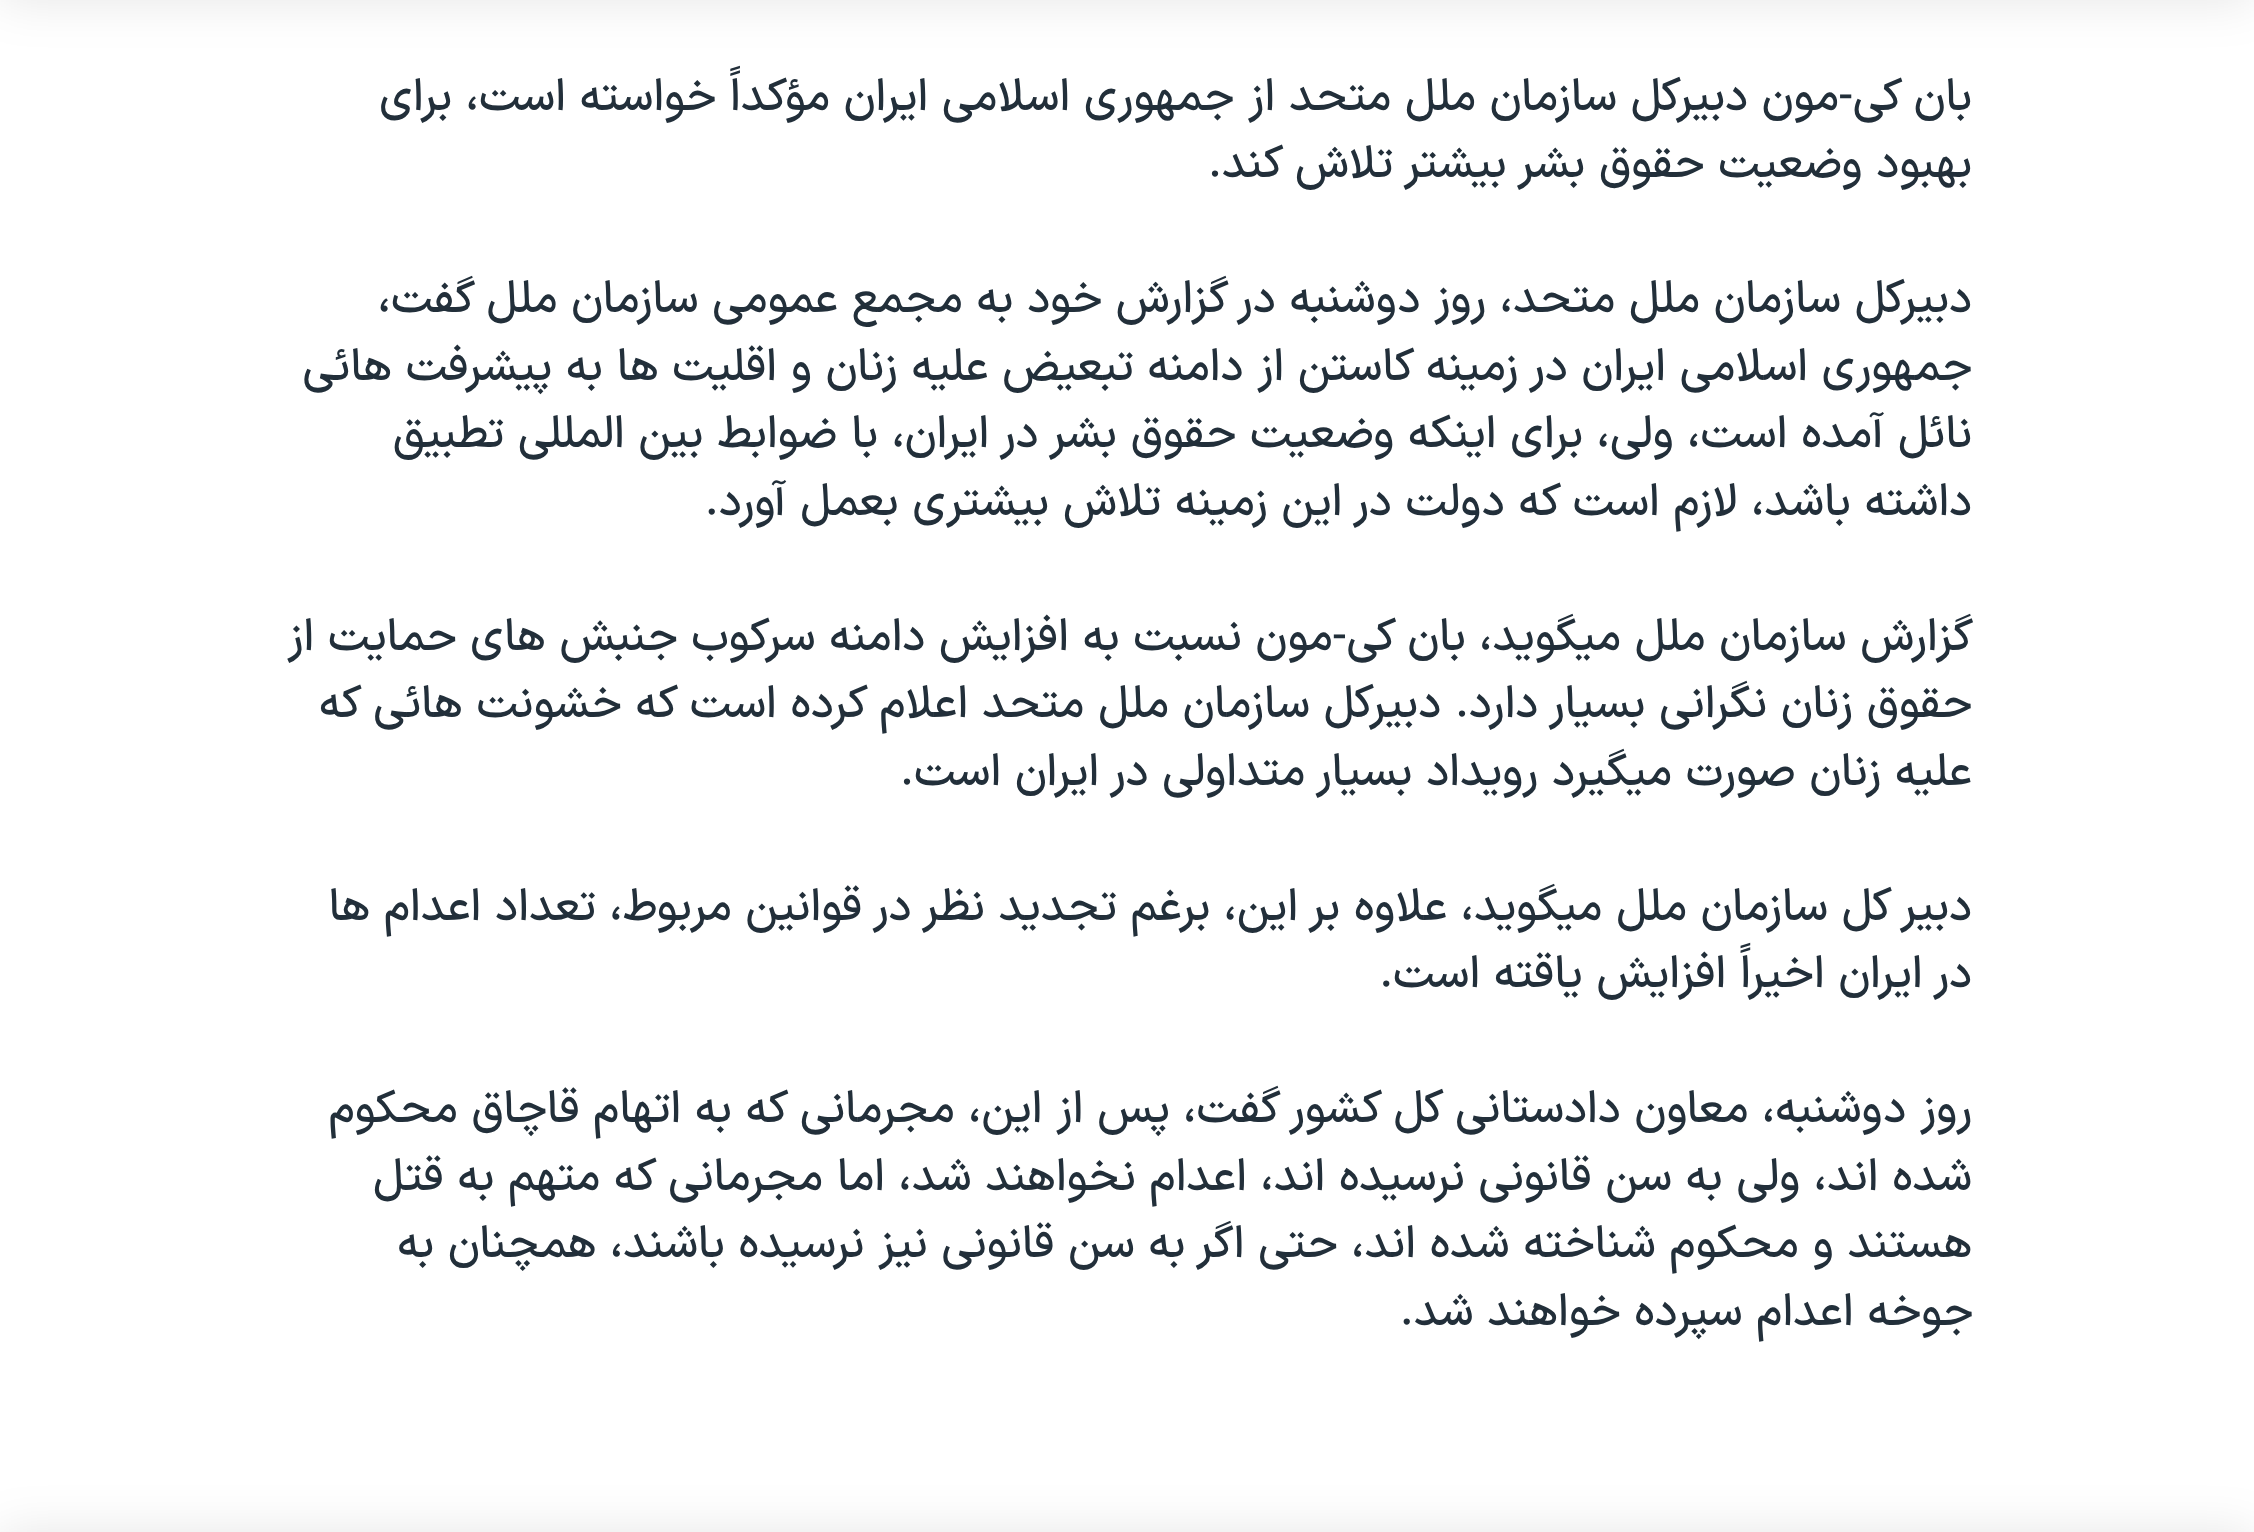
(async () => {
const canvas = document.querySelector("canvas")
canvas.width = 2254
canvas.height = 1532
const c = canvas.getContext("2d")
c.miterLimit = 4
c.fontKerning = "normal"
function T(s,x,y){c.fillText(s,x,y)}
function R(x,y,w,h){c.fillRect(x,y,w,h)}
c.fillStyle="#fff"
R(0,0,2254,1532)
c.fillStyle="#0000001a"
c.filter="blur(25px)"
c.beginPath()
c.rect(0,-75,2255,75)
c.fill()
c.filter="none"
c.filter="blur(25px)"
c.beginPath()
c.rect(0,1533,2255,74)
c.fill()
c.filter="none"
c.direction="rtl"
c.font="500 45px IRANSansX"
c.fillStyle="#222f3a"
T("بان کی-مون دبيرکل سازمان ملل متحد از جمهوری اسلامی ايران مؤکداً خواسته است، برای",1972,110)
T("بهبود وضعيت حقوق بشر بيشتر تلاش کند.",1972,177)
T("دبيرکل سازمان ملل متحد، روز دوشنبه در گزارش خود به مجمع عمومی سازمان ملل گفت،",1972,312)
T("جمهوری اسلامی ايران در زمينه کاستن از دامنه تبعيض عليه زنان و اقليت ها به پيشرفت هائی",1972,380)
T("نائل آمده است، ولی، برای اينکه وضعيت حقوق بشر در ايران، با ضوابط بين المللی تطبيق",1972,447)
T("داشته باشد، لازم است که دولت در اين زمينه تلاش بيشتری بعمل آورد.",1972,515)
T("گزارش سازمان ملل ميگويد، بان کی-مون نسبت به افزايش دامنه سرکوب جنبش های حمايت از",1973,650)
T("حقوق زنان نگرانی بسيار دارد. دبيرکل سازمان ملل متحد اعلام کرده است که خشونت هائی که",1972,717)
T("عليه زنان صورت ميگيرد رويداد بسيار متداولی در ايران است.",1972,785)
T("دبير کل سازمان ملل ميگويد، علاوه بر اين، برغم تجديد نظر در قوانين مربوط، تعداد اعدام ها",1972,920)
T("در ايران اخيراً افزايش ياقته است.",1972,987)
T("روز دوشنبه، معاون دادستانی کل کشور گفت، پس از اين، مجرمانی که به اتهام قاچاق محکوم",1972,1122)
T("شده اند، ولی به سن قانونی نرسيده اند، اعدام نخواهند شد، اما مجرمانی که متهم به قتل",1972,1190)
T("هستند و محکوم شناخته شده اند، حتی اگر به سن قانونی نيز نرسيده باشند، همچنان به",1972,1257)
T("جوخه اعدام سپرده خواهند شد.",1973,1325)
})()
